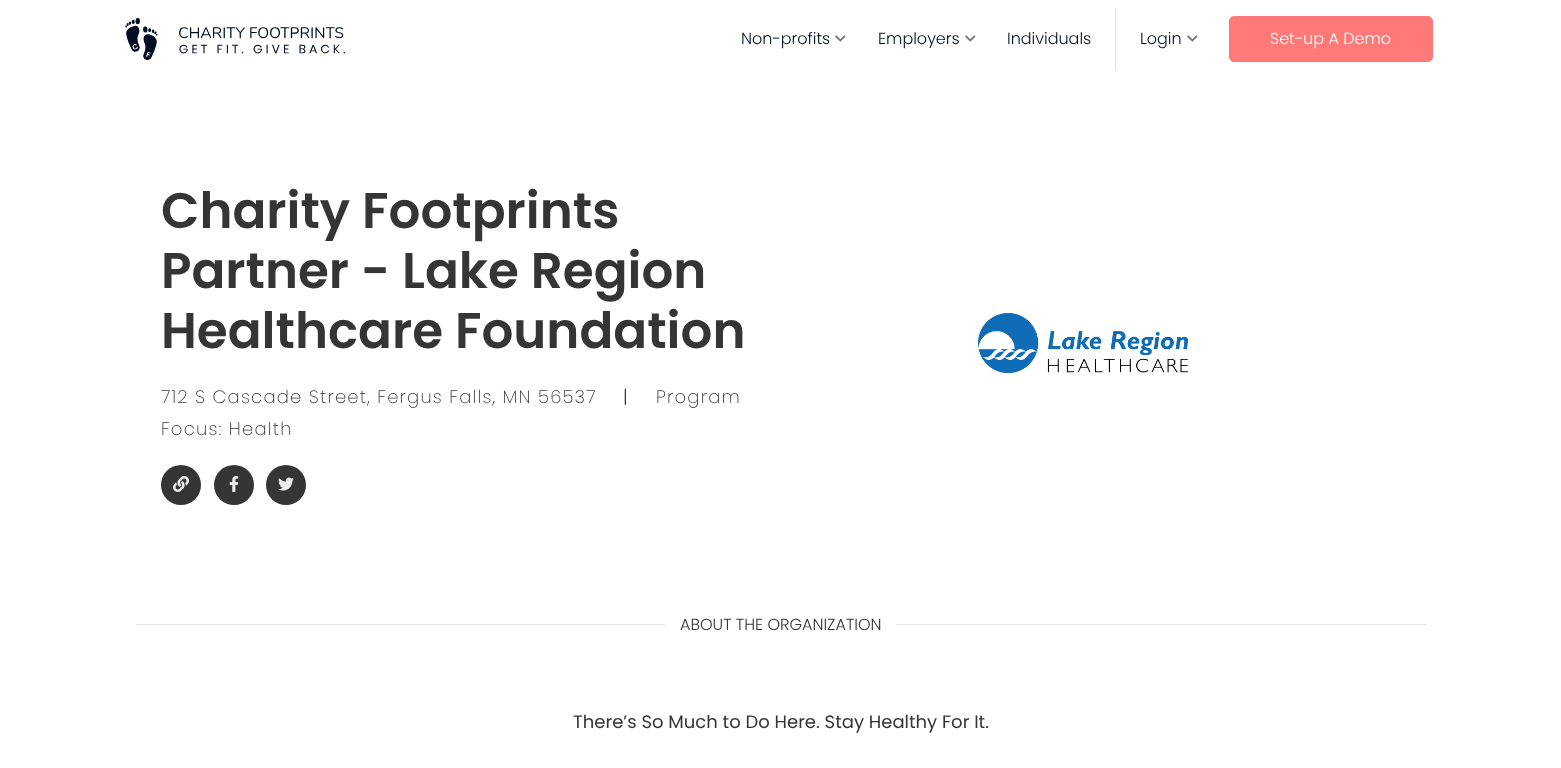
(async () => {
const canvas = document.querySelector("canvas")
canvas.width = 1561
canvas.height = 768
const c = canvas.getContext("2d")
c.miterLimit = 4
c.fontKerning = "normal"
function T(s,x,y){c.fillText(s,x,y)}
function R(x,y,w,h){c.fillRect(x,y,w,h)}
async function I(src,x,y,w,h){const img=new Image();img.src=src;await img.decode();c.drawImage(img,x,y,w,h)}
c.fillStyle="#fff"
R(0,0,1561,768)
await I("1.png",125,18,220,42)
c.font="300 16px Poppins"
c.fillStyle="#000d24"
T("Non-profits",741,44)
await I("2.png",835,35,11,7)
T("Employers",878,44)
await I("2.png",965,35,11,7)
c.fillStyle="#dee2e6"
R(1115,8,1,62)
c.fillStyle="#000d24"
T("Individuals",1007,44)
T("Login",1140,44)
await I("2.png",1187,35,11,7)
c.fillStyle="#ff7979"
c.beginPath()
c.roundRect(1229.5,16.5,203,45,4.5)
c.fill()
c.strokeStyle="#ff7979"
c.stroke()
c.fillStyle="#fff"
T("Set-up A Demo",1270,44)
c.font="600 50px Poppins"
c.fillStyle="#353535"
T("Charity Footprints",161,228)
T("Partner - Lake Region",161,288)
T("Healthcare Foundation",161,348)
c.letterSpacing="1.2px"
c.font="200 18px Poppins"
T("712 S Cascade Street, Fergus Falls, MN 56537",161,403)
c.font="300 18px Poppins"
T("|",623,403)
c.font="200 18px Poppins"
T("Program",656,403)
T("Focus: Health",161,435)
c.beginPath()
c.arc(181,485,20,0,7)
c.fill()
await I("3.png",173,476,16,16)
c.beginPath()
c.arc(234,485,20,0,7)
c.fill()
await I("4.png",229,476,10,16)
c.beginPath()
c.arc(286,485,20,0,7)
c.fill()
await I("5.png",278,477,16,14)
await I("6.png",978,313,210,60)
c.fillStyle="#e6e6e6"
R(136,624,529,1)
c.letterSpacing="0px"
c.font="300 16px Poppins"
c.fillStyle="#353535"
T("ABOUT THE ORGANIZATION",680,630)
c.fillStyle="#e5e5e5"
R(896,624,530,1)
c.font="18px Poppins"
c.fillStyle="#353535"
T("There’s So Much to Do Here. Stay Healthy For It.",573,728)
})()
